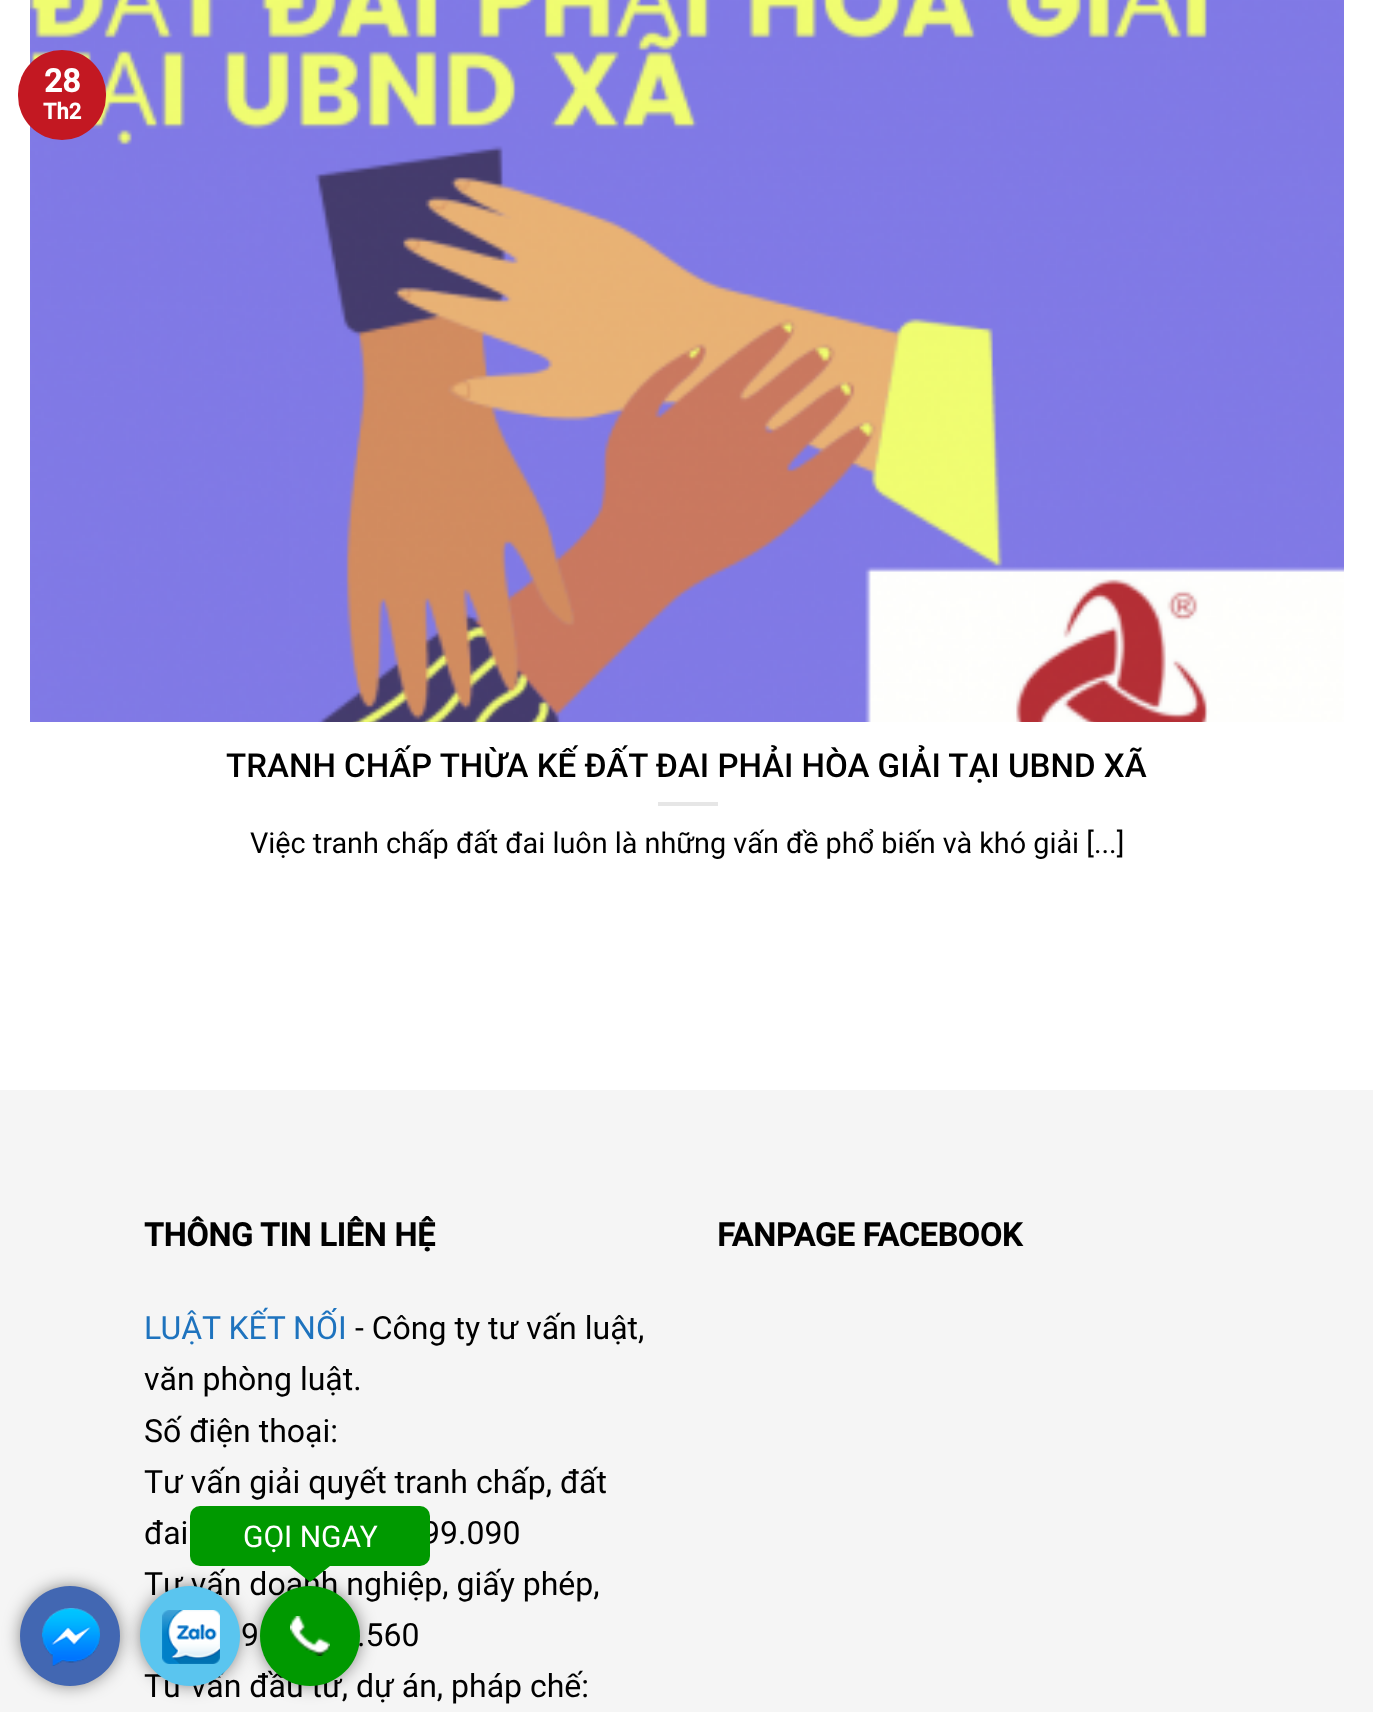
(async () => {
const canvas = document.querySelector("canvas")
canvas.width = 1373
canvas.height = 1712
const c = canvas.getContext("2d")
c.miterLimit = 4
c.fontKerning = "normal"
function T(s,x,y){c.fillText(s,x,y)}
function R(x,y,w,h){c.fillRect(x,y,w,h)}
function Q(x,y,w,h,r){c.beginPath();c.roundRect(x,y,w,h,r);c.fill()}
async function I(src,x,y,w,h){const img=new Image();img.src=src;await img.decode();c.drawImage(img,x,y,w,h)}
let path
c.fillStyle="#fff"
R(0,0,1373,1712)
await I("1.png",30,0,1314,722)
c.fillStyle="#c31822"
Q(18,50,88,90,44)
c.font="bold 32px Roboto"
c.fillStyle="#fff"
T("28",44,92)
c.font="bold 22px Roboto"
T("Th2",43,119)
c.font="500 33.1px Roboto"
c.fillStyle="#000"
T("TRANH CHẤP THỪA KẾ ĐẤT ĐAI PHẢI HÒA GIẢI TẠI UBND XÃ",226,777)
c.fillStyle="#e6e6e6"
R(658,802,60,4)
c.font="28.8px Roboto"
c.fillStyle="#000"
T("Việc tranh chấp đất đai luôn là những vấn đề phổ biến và khó giải [...]",250,853)
c.fillStyle="#f5f5f5"
R(0,1090,1373,622)
c.font="bold 32px Roboto"
c.fillStyle="#000"
T("THÔNG TIN LIÊN HỆ",144,1246)
c.font="32px Roboto"
c.fillStyle="#1e73be"
T("LUẬT KẾT NỐI",144,1339)
c.fillStyle="#000"
T("- Công ty tư vấn luật,",355,1339)
T("văn phòng luật.",144,1390)
T("Số điện thoại:",144,1442)
T("Tư vấn giải quyết tranh chấp, đất",144,1493)
T("đai",144,1544)
T("99.090",422,1544)
T("Tư vấn doanh nghiệp, giấy phép,",144,1595)
T("9",241,1646)
T(".560",357,1646)
T("Tư vấn đầu tư, dự án, pháp chế:",144,1697)
c.font="bold 32px Roboto"
T("FANPAGE FACEBOOK",717,1246)
c.fillStyle="#000000b3"
c.filter="blur(10px)"
c.beginPath()
c.roundRect(24,1590,92,92,46)
c.fill()
c.filter="none"
c.fillStyle="#4267b2"
c.beginPath()
c.arc(70,1636,50,0,7)
c.fill()
c.fillStyle="#000000b3"
c.filter="blur(10px)"
c.beginPath()
c.roundRect(144,1590,92,92,46)
c.fill()
c.filter="none"
c.fillStyle="#5ac5ef"
c.beginPath()
c.arc(190,1636,50,0,7)
c.fill()
c.fillStyle="#000000b3"
c.filter="blur(10px)"
c.beginPath()
c.roundRect(264,1590,92,92,46)
c.fill()
c.filter="none"
c.fillStyle="#090"
Q(190,1506,240,60,10)
c.font="30px Roboto"
c.fillStyle="#fff"
T("GỌI NGAY",243,1547)
c.fillStyle="#090"
path = new Path2D("M290 1566h40l-20 16z")
c.fill(path)
c.beginPath()
c.arc(310,1636,50,0,7)
c.fill()
await I("2.png",290,1616,40,40)
await I("3.png",42,1608,58,58)
await I("4.png",162,1610,58,54)
})()
